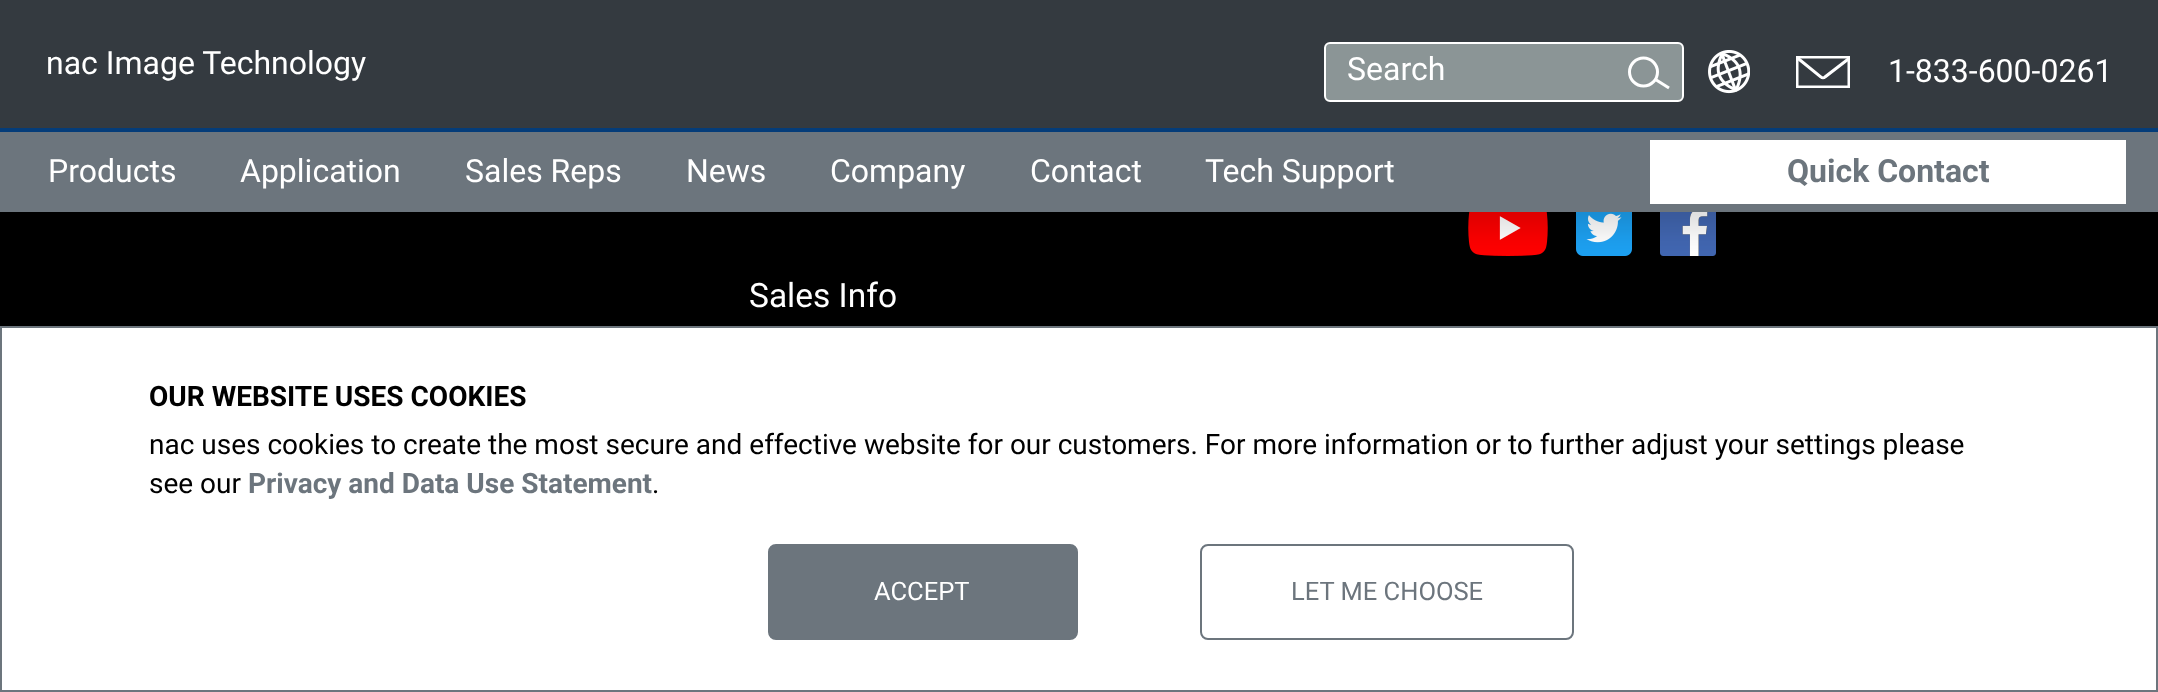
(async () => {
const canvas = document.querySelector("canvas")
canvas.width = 2158
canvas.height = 692
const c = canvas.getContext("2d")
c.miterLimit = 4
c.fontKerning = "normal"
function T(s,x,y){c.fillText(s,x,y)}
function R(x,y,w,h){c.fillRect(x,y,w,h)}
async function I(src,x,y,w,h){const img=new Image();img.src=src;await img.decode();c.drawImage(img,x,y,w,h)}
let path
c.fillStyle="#000"
R(0,0,2158,692)
await I("2.png",1468,212,80,44)
await I("3.png",1576,212,56,44)
await I("4.png",1660,212,56,44)
c.fillStyle="#00000026"
c.filter="blur(16px)"
c.beginPath()
c.rect(0,16,2158,212)
c.fill()
c.filter="none"
c.fillStyle="#6c757d"
R(0,132,2158,80)
c.fillStyle="#343a40"
R(0,0,2158,128)
c.fillStyle="#043c79"
R(0,128,2158,4)
c.font="32px Roboto"
c.fillStyle="#fff"
T("nac Image Technology",46,74)
c.fillStyle="#8b9596"
c.beginPath()
c.roundRect(1325,43,358,58,5)
c.fill()
c.strokeStyle="#fff"
c.lineWidth=2
c.stroke()
c.fillStyle="#fff"
T("Search",1347,80)
c.beginPath()
c.arc(1643.5,72,14,0,7)
c.lineWidth=3
c.stroke()
path = new Path2D("M1655.5 79.5l13.5 8.5")
c.stroke(path)
await I("1.png",1708,50,42,44)
c.save()
c.beginPath()
c.rect(1796,56,54,32)
c.clip()
path = new Path2D("M1797 57h52v30h-52z")
c.stroke(path)
c.restore()
path = new Path2D("M1797.5 58l23.5 19c1 1 3 1 4 0l24-18.5")
c.stroke(path)
T("1-833-600-0261",1888,82)
T("Products",48,182)
T("Application",240,182)
T("Sales Reps",465,182)
T("News",686,182)
T("Company",830,182)
T("Contact",1030,182)
T("Tech Support",1205,182)
R(1650,140,476,64)
c.font="bold 32px Roboto"
c.fillStyle="#6c757d"
T("Quick Contact",1787,182)
c.font="33.5px Roboto"
c.fillStyle="#fff"
T("Sales Info",749,307)
c.beginPath()
c.rect(1,327,2156,364)
c.fill()
c.strokeStyle="#6c757d"
c.lineWidth=2
c.stroke()
c.font="bold 28px Roboto"
c.fillStyle="#000"
T("OUR WEBSITE USES COOKIES",149,406)
c.font="28px Roboto"
T("nac uses cookies to create the most secure and effective website for our customers. For more information or to further adjust your settings please",149,454)
T("see our",149,493)
c.font="bold 28px Roboto"
c.fillStyle="#6c757d"
T("Privacy and Data Use Statement",248,493)
c.font="28px Roboto"
c.fillStyle="#000"
T(".",652,493)
c.fillStyle="#6c757d"
c.beginPath()
c.roundRect(769,545,308,94,7)
c.fill()
c.stroke()
c.font="25.5px Roboto"
c.fillStyle="#fff"
T("ACCEPT",874,600)
c.beginPath()
c.roundRect(1201,545,372,94,7)
c.stroke()
c.fillStyle="#6c757d"
T("LET ME CHOOSE",1291,600)
})()
